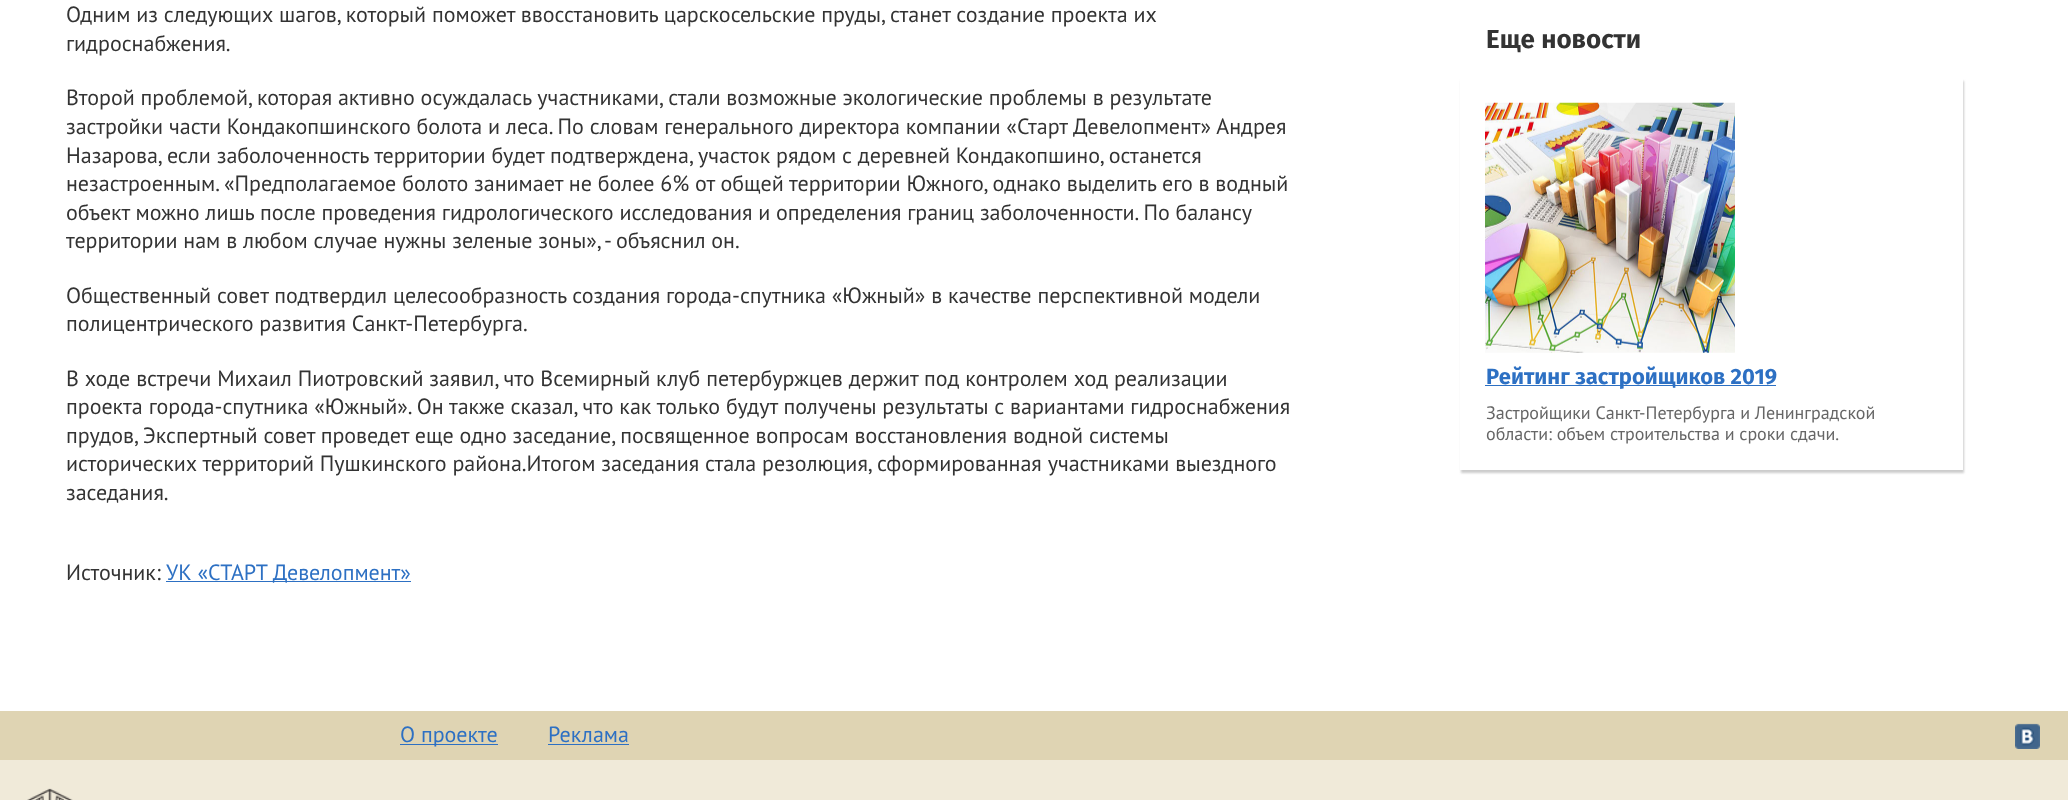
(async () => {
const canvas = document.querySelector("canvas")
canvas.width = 2068
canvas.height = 800
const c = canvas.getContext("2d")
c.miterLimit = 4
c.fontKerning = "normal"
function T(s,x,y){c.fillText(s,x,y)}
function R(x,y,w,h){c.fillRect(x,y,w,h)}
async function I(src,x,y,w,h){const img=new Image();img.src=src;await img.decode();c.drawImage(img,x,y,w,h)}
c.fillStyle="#fff"
R(0,0,2068,800)
c.font="22px PT Sans"
c.fillStyle="#333"
T("Одним из следующих шагов, который поможет ввосстановить царскосельские пруды, станет создание проекта их",66,22)
T("гидроснабжения.",66,51)
T("Второй проблемой, которая активно осуждалась участниками, стали возможные экологические проблемы в результате",66,105)
T("застройки части Кондакопшинского болота и леса. По словам генерального директора компании «Старт Девелопмент» Андрея",66,134)
T("Назарова, если заболоченность территории будет подтверждена, участок рядом с деревней Кондакопшино, останется",66,163)
T("незастроенным. «Предполагаемое болото занимает не более 6% от общей территории Южного, однако выделить его в водный",66,191)
T("объект можно лишь после проведения гидрологического исследования и определения границ заболоченности. По балансу",66,220)
T("территории нам в любом случае нужны зеленые зоны», - объяснил он.",66,248)
T("Общественный совет подтвердил целесообразность создания города-спутника «Южный» в качестве перспективной модели",66,303)
T("полицентрического развития Санкт-Петербурга.",66,331)
T("В ходе встречи Михаил Пиотровский заявил, что Всемирный клуб петербуржцев держит под контролем ход реализации",66,386)
T("проекта города-спутника «Южный». Он также сказал, что как только будут получены результаты с вариантами гидроснабжения",66,414)
T("прудов, Экспертный совет проведет еще одно заседание, посвященное вопросам восстановления водной системы",66,443)
T("исторических территорий Пушкинского района.Итогом заседания стала резолюция, сформированная участниками выездного",66,471)
T("заседания.",66,500)
T("Источник:",66,580)
c.fillStyle="#2d70c3"
R(166,581,245,1)
T("УК «СТАРТ Девелопмент»",166,580)
c.font="bold 26px Fira Sans"
c.fillStyle="#333"
T("Еще новости",1486,48)
c.fillStyle="#ccc"
c.filter="blur(1px)"
c.beginPath()
c.rect(1461,81,503,392)
c.fill()
c.filter="none"
c.fillStyle="#fff"
R(1460,79,503,391)
await I("1.png",1485,102,250,251)
c.fillStyle="#2d70c3"
R(1485,385,291,1)
c.font="bold 22px Fira Sans"
T("Рейтинг застройщиков 2019",1486,384)
c.font="18px PT Sans"
c.fillStyle="#666"
T("Застройщики Санкт-Петербурга и Ленинградской",1486,419)
T("области: объем строительства и сроки сдачи.",1486,440)
c.fillStyle="#dfd4b3"
R(0,711,2068,49)
c.fillStyle="#2d70c3"
R(400,744,98,1)
c.font="22px PT Sans"
T("О проекте",400,742)
T("Реклама",548,742)
R(548,744,81,1)
await I("2.png",2015,723,25,26)
c.fillStyle="#f0ead9"
R(0,760,2068,40)
await I("3.png",27,788,46,12)
})()
